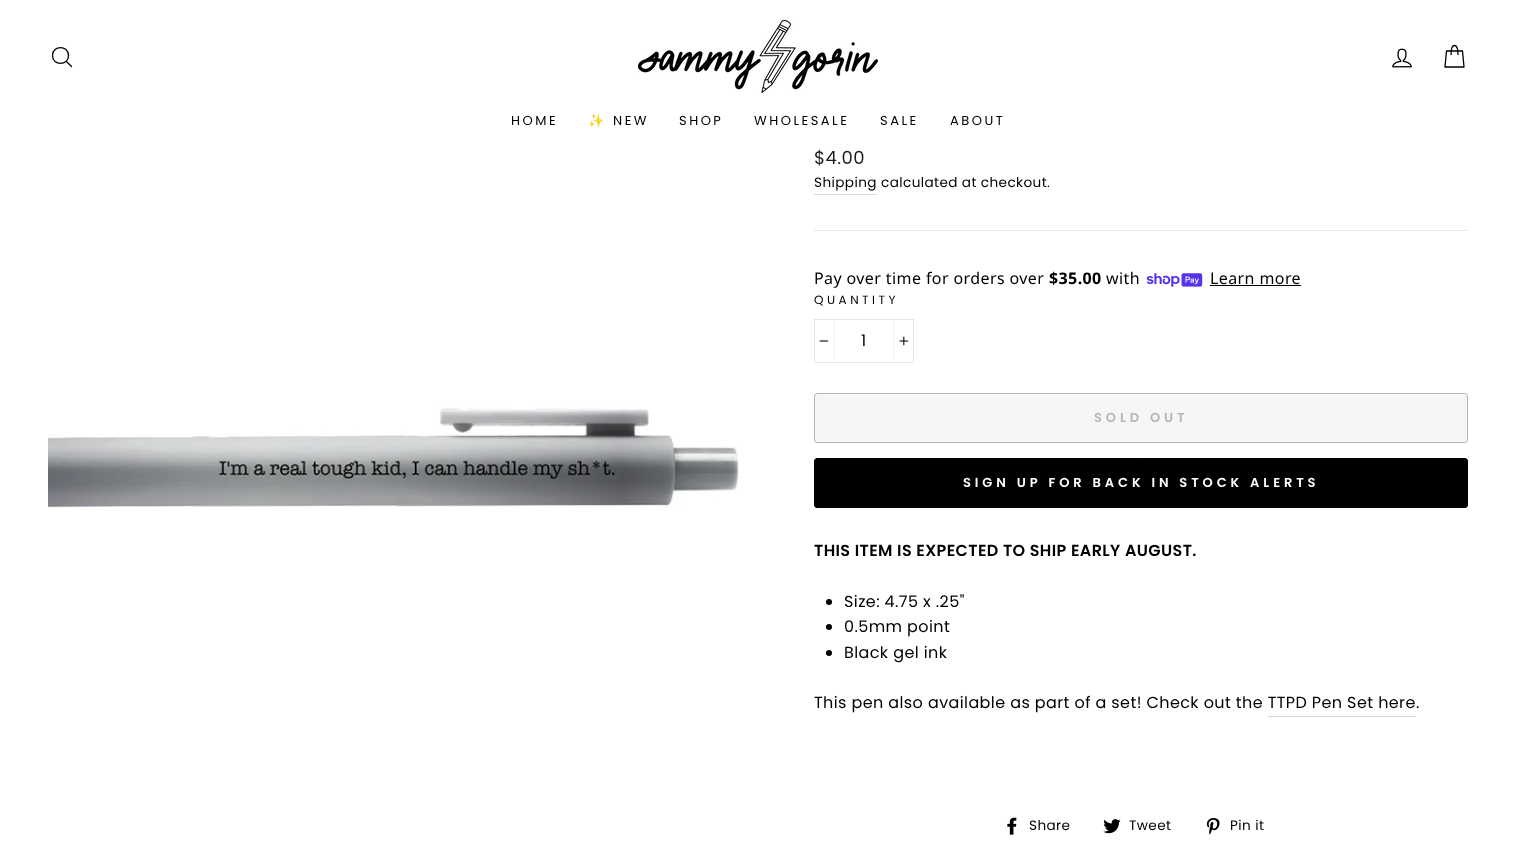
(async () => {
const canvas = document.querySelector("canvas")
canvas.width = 1516
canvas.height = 856
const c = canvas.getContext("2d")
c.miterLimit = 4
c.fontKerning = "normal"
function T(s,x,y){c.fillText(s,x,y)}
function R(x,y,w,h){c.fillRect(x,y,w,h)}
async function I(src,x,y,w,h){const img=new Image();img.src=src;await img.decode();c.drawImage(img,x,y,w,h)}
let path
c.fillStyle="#fff"
R(0,0,1516,856)
c.fillStyle="#00000033"
c.filter="blur(0.5px)"
c.beginPath()
c.rect(0,0,1516,149)
c.fill()
c.filter="none"
c.fillStyle="#fff"
R(0,0,1516,149)
path = new Path2D("M68.5 55.5c0 10.5-16 10.5-16 0c0-10.5 16-10.5 16 0zm3 11l-5-5")
c.strokeStyle="#000"
c.lineWidth=1.3
c.lineCap="round"
c.lineJoin="round"
c.stroke(path)
await I("1.png",638,20,240,73)
await I("2.png",1392,48,20,20)
path = new Path2D("M1451 54.5c0-12 7-12 7 0m-11.5-3.5h16l1.5 16h-19z")
c.stroke(path)
c.letterSpacing="2.5px"
c.font="13px Poppins"
c.fillStyle="#000"
T("HOME",511,125)
c.font="13px Noto Color Emoji"
T("✨",588,125)
c.font="13px Poppins"
T("NEW",613,125)
T("SHOP",679,125)
T("WHOLESALE",754,125)
T("SALE",880,125)
T("ABOUT",950,125)
await I("3.png",48,407,691,101)
c.letterSpacing="0.4px"
c.font="18px Poppins"
c.fillStyle="#1c1d1d"
T("$4.00",814,164)
c.fillStyle="#d9d9d9"
R(814,194,63,1)
c.font="13.6px Poppins"
c.fillStyle="#000"
T("Shipping",814,187)
T("calculated at checkout.",881,187)
c.fillStyle="#e6e6e6"
R(814,230,654,1)
c.font="16px Noto Sans"
c.fillStyle="#000"
T("Pay over time for orders over",814,284)
c.font="bold 16px Noto Sans"
T("$35.00",1049,284)
c.font="16px Noto Sans"
T("with",1106,284)
await I("4.png",1146,273,57,14)
T("Learn more",1210,284)
R(1210,285,91,1)
c.letterSpacing="3.5px"
c.font="12px Poppins"
T("QUANTITY",814,304)
c.strokeStyle="#e6e6e6"
c.lineWidth=1
c.lineJoin="miter"
c.strokeRect(814.5,319.5,99,43)
c.fillStyle="#f2f2f2"
R(834,319,1,44)
await I("5.png",819,340,10,2)
c.letterSpacing="0.4px"
c.font="16px Poppins"
c.fillStyle="#000"
T("1",861,346)
c.fillStyle="#f2f2f2"
R(893,319,1,44)
await I("6.png",899,336,10,10)
c.fillStyle="#f6f6f6"
c.beginPath()
c.roundRect(814.5,393.5,653,49,2.5)
c.fill()
c.strokeStyle="#b6b6b6"
c.stroke()
c.letterSpacing="3.9px"
c.font="600 13px Poppins"
c.fillStyle="#b6b6b6"
T("SOLD OUT",1094,422)
c.fillStyle="#000"
c.beginPath()
c.roundRect(814.5,458.5,653,49,2.5)
c.fill()
c.strokeStyle="#000"
c.stroke()
c.fillStyle="#fff"
T("SIGN UP FOR BACK IN STOCK ALERTS",963,487)
c.letterSpacing="0.4px"
c.font="600 16px Poppins"
c.fillStyle="#000"
T("THIS ITEM IS EXPECTED TO SHIP EARLY AUGUST.",814,556)
c.beginPath()
c.arc(829,602,3,0,7)
c.fill()
c.font="16px Poppins"
T("Size: 4.75 x .25\"",844,607)
c.beginPath()
c.arc(829,627,3,0,7)
c.fill()
T("0.5mm point",844,632)
c.beginPath()
c.arc(829,653,3,0,7)
c.fill()
T("Black gel ink",844,658)
T("This pen also available as part of a set! Check out the TTPD Pen Set here",814,708)
T(".",1416,708)
c.fillStyle="#d9d9d9"
R(1268,716,148,1)
await I("7.png",1007,817,10,18)
c.font="13.6px Poppins"
c.fillStyle="#000"
T("Share",1029,830)
await I("8.png",1103,819,18,15)
T("Tweet",1129,830)
await I("9.png",1206,818,14,17)
T("Pin it",1230,830)
})()
